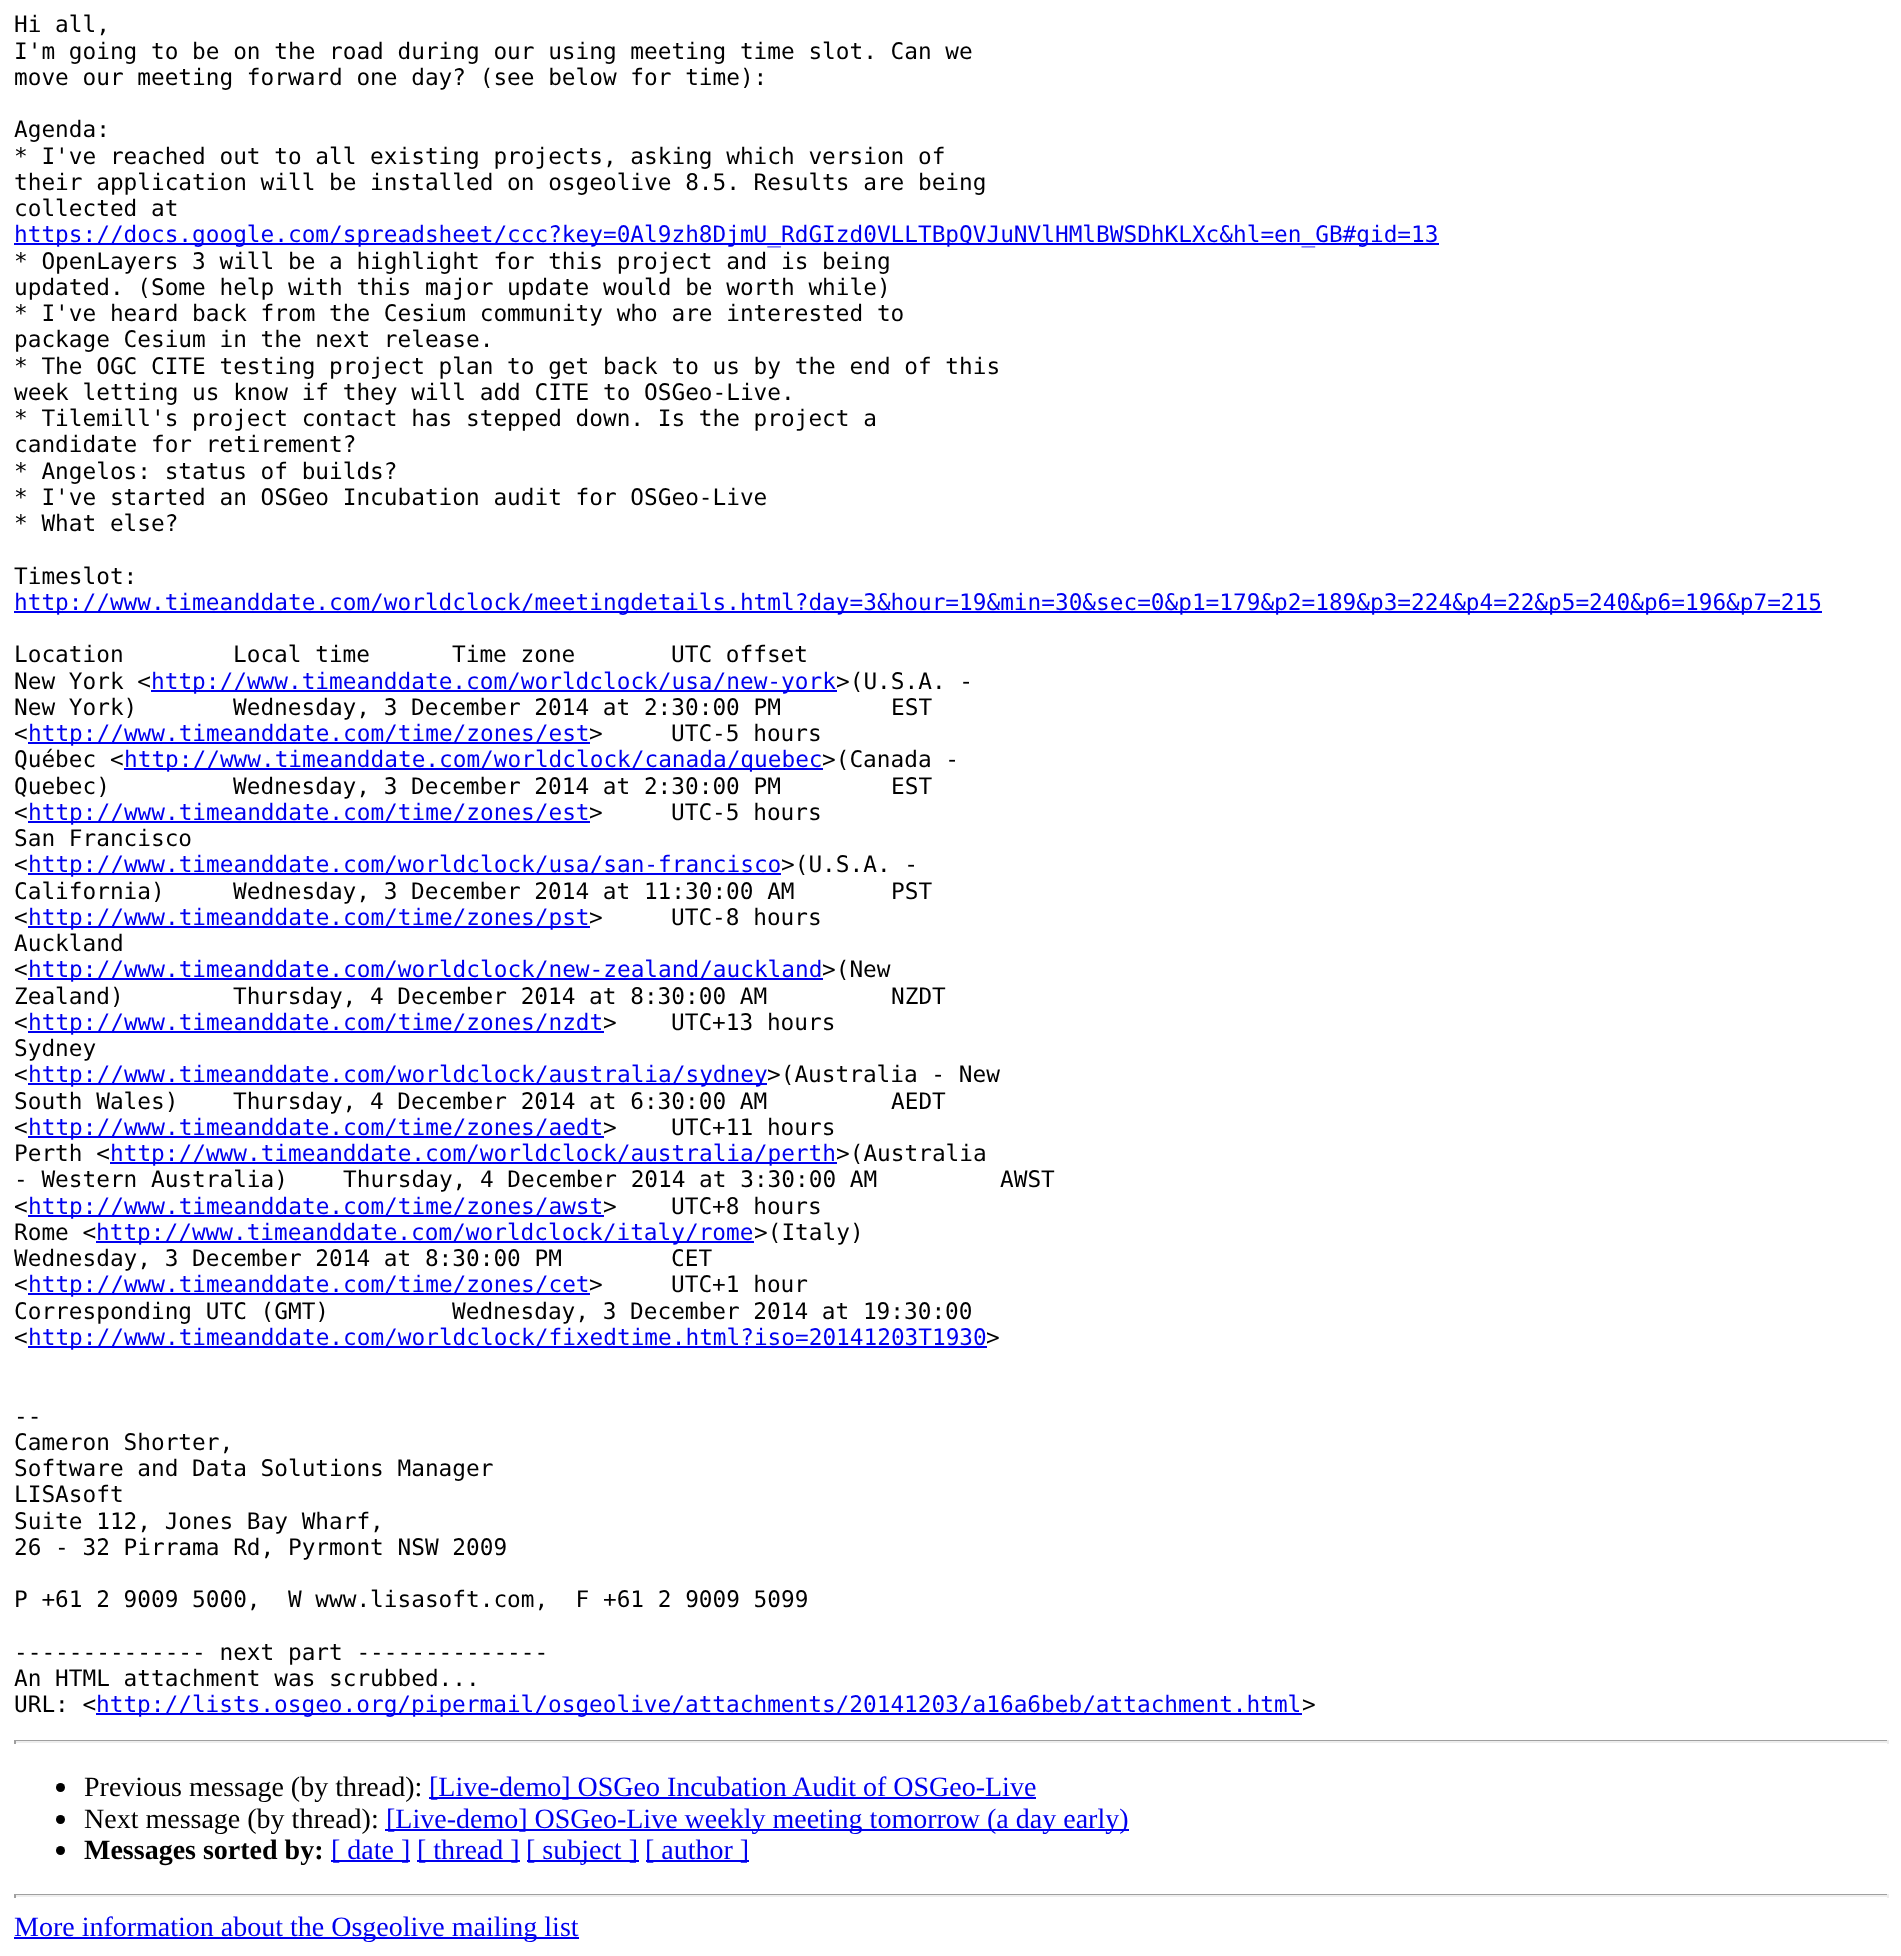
(async () => {
const canvas = document.querySelector("canvas")
canvas.width = 1901
canvas.height = 1956
const c = canvas.getContext("2d")
c.miterLimit = 4
c.fontKerning = "normal"
function T(s,x,y){c.fillText(s,x,y)}
function R(x,y,w,h){c.fillRect(x,y,w,h)}
c.fillStyle="#fff"
R(0,0,1901,1956)
c.font="22.75px DejaVu Sans Mono"
c.fillStyle="#000"
T("Hi all,",14,32)
T("I'm going to be on the road during our using meeting time slot. Can we",14,59)
T("move our meeting forward one day? (see below for time):",14,85)
T("Agenda:",14,137)
T("* I've reached out to all existing projects, asking which version of",14,164)
T("their application will be installed on osgeolive 8.5. Results are being",14,190)
T("collected at",14,216)
c.fillStyle="#00e"
R(14,243,1425,2)
T("https://docs.google.com/spreadsheet/ccc?key=0Al9zh8DjmU_RdGIzd0VLLTBpQVJuNVlHMlBWSDhKLXc&hl=en_GB#gid=13",14,242)
c.fillStyle="#000"
T("* OpenLayers 3 will be a highlight for this project and is being",14,269)
T("updated. (Some help with this major update would be worth while)",14,295)
T("* I've heard back from the Cesium community who are interested to",14,321)
T("package Cesium in the next release.",14,347)
T("* The OGC CITE testing project plan to get back to us by the end of this",14,374)
T("week letting us know if they will add CITE to OSGeo-Live.",14,400)
T("* Tilemill's project contact has stepped down. Is the project a",14,426)
T("candidate for retirement?",14,452)
T("* Angelos: status of builds?",14,479)
T("* I've started an OSGeo Incubation audit for OSGeo-Live",14,505)
T("* What else?",14,531)
T("Timeslot:",14,584)
c.fillStyle="#00e"
R(14,611,1808,2)
T("http://www.timeanddate.com/worldclock/meetingdetails.html?day=3&hour=19&min=30&sec=0&p1=179&p2=189&p3=224&p4=22&p5=240&p6=196&p7=215",14,610)
c.fillStyle="#000"
T("Location",14,662)
T("Local time",233,662)
T("Time zone",452,662)
T("UTC offset",671,662)
T("New York <",14,689)
c.fillStyle="#00e"
R(151,690,686,2)
T("http://www.timeanddate.com/worldclock/usa/new-york",151,689)
c.fillStyle="#000"
T(">(U.S.A. -",836,689)
T("New York)",14,715)
T("Wednesday, 3 December 2014 at 2:30:00 PM",233,715)
T("EST",891,715)
T("<",14,741)
c.fillStyle="#00e"
R(28,742,562,2)
T("http://www.timeanddate.com/time/zones/est",28,741)
c.fillStyle="#000"
T(">",589,741)
T("UTC-5 hours",671,741)
T("Québec <",14,767)
c.fillStyle="#00e"
R(124,768,699,2)
T("http://www.timeanddate.com/worldclock/canada/quebec",124,767)
c.fillStyle="#000"
T(">(Canada -",822,767)
T("Quebec)",14,794)
T("Wednesday, 3 December 2014 at 2:30:00 PM",233,794)
T("EST",891,794)
T("<",14,820)
c.fillStyle="#00e"
R(28,821,562,2)
T("http://www.timeanddate.com/time/zones/est",28,820)
c.fillStyle="#000"
T(">",589,820)
T("UTC-5 hours",671,820)
T("San Francisco",14,846)
T("<",14,872)
c.fillStyle="#00e"
R(28,873,753,2)
T("http://www.timeanddate.com/worldclock/usa/san-francisco",28,872)
c.fillStyle="#000"
T(">(U.S.A. -",781,872)
T("California)",14,899)
T("Wednesday, 3 December 2014 at 11:30:00 AM",233,899)
T("PST",891,899)
T("<",14,925)
c.fillStyle="#00e"
R(28,926,562,2)
T("http://www.timeanddate.com/time/zones/pst",28,925)
c.fillStyle="#000"
T(">",589,925)
T("UTC-8 hours",671,925)
T("Auckland",14,951)
T("<",14,977)
c.fillStyle="#00e"
R(28,978,795,2)
T("http://www.timeanddate.com/worldclock/new-zealand/auckland",28,977)
c.fillStyle="#000"
T(">(New",822,977)
T("Zealand)",14,1004)
T("Thursday, 4 December 2014 at 8:30:00 AM",233,1004)
T("NZDT",891,1004)
T("<",14,1030)
c.fillStyle="#00e"
R(28,1031,576,2)
T("http://www.timeanddate.com/time/zones/nzdt",28,1030)
c.fillStyle="#000"
T(">",603,1030)
T("UTC+13 hours",671,1030)
T("Sydney",14,1056)
T("<",14,1082)
c.fillStyle="#00e"
R(28,1083,739,2)
T("http://www.timeanddate.com/worldclock/australia/sydney",28,1082)
c.fillStyle="#000"
T(">(Australia - New",767,1082)
T("South Wales)",14,1109)
T("Thursday, 4 December 2014 at 6:30:00 AM",233,1109)
T("AEDT",891,1109)
T("<",14,1135)
c.fillStyle="#00e"
R(28,1136,576,2)
T("http://www.timeanddate.com/time/zones/aedt",28,1135)
c.fillStyle="#000"
T(">",603,1135)
T("UTC+11 hours",671,1135)
T("Perth <",14,1161)
c.fillStyle="#00e"
R(110,1162,727,2)
T("http://www.timeanddate.com/worldclock/australia/perth",110,1161)
c.fillStyle="#000"
T(">(Australia",836,1161)
T("- Western Australia)",14,1187)
T("Thursday, 4 December 2014 at 3:30:00 AM",343,1187)
T("AWST",1000,1187)
T("<",14,1214)
c.fillStyle="#00e"
R(28,1215,576,2)
T("http://www.timeanddate.com/time/zones/awst",28,1214)
c.fillStyle="#000"
T(">",603,1214)
T("UTC+8 hours",671,1214)
T("Rome <",14,1240)
c.fillStyle="#00e"
R(96,1241,658,2)
T("http://www.timeanddate.com/worldclock/italy/rome",96,1240)
c.fillStyle="#000"
T(">(Italy)",754,1240)
T("Wednesday, 3 December 2014 at 8:30:00 PM",14,1266)
T("CET",671,1266)
T("<",14,1292)
c.fillStyle="#00e"
R(28,1293,562,2)
T("http://www.timeanddate.com/time/zones/cet",28,1292)
c.fillStyle="#000"
T(">",589,1292)
T("UTC+1 hour",671,1292)
T("Corresponding UTC (GMT)",14,1319)
T("Wednesday, 3 December 2014 at 19:30:00",452,1319)
T("<",14,1345)
c.fillStyle="#00e"
R(28,1346,959,2)
T("http://www.timeanddate.com/worldclock/fixedtime.html?iso=20141203T1930",28,1345)
c.fillStyle="#000"
T(">",986,1345)
T("--",14,1424)
T("Cameron Shorter,",14,1450)
T("Software and Data Solutions Manager",14,1476)
T("LISAsoft",14,1502)
T("Suite 112, Jones Bay Wharf,",14,1529)
T("26 - 32 Pirrama Rd, Pyrmont NSW 2009",14,1555)
T("P +61 2 9009 5000,  W www.lisasoft.com,  F +61 2 9009 5099",14,1607)
T("-------------- next part --------------",14,1660)
T("An HTML attachment was scrubbed...",14,1686)
T("URL: <",14,1712)
c.fillStyle="#00e"
R(96,1713,1206,2)
T("http://lists.osgeo.org/pipermail/osgeolive/attachments/20141203/a16a6beb/attachment.html",96,1712)
c.fillStyle="#000"
T(">",1302,1712)
c.fillStyle="#9f9f9f"
R(14,1740,1874,1)
c.fillStyle="#eee"
R(1887,1740,2,4)
R(14,1741,1874,2)
c.fillStyle="#9f9f9f"
R(14,1740,2,4)
c.fillStyle="#000"
c.beginPath()
c.arc(60.5,1787.5,4.5,0,7)
c.fill()
c.font="28px Liberation Serif"
T("Previous message (by thread):",84,1796)
c.fillStyle="#00e"
R(429,1797,607,2)
T("[Live-demo] OSGeo Incubation Audit of OSGeo-Live",429,1796)
c.fillStyle="#000"
c.beginPath()
c.arc(60.5,1819.5,4.5,0,7)
c.fill()
T("Next message (by thread):",84,1828)
c.fillStyle="#00e"
R(385,1829,744,2)
T("[Live-demo] OSGeo-Live weekly meeting tomorrow (a day early)",386,1828)
c.fillStyle="#000"
c.beginPath()
c.arc(60.5,1850.5,4.5,0,7)
c.fill()
c.font="bold 28px Liberation Serif"
T("Messages sorted by:",84,1859)
c.fillStyle="#00e"
R(331,1860,79,2)
c.font="28px Liberation Serif"
T("[ date ]",331,1859)
R(417,1860,103,2)
T("[ thread ]",417,1859)
R(527,1860,112,2)
T("[ subject ]",526,1859)
R(646,1860,103,2)
T("[ author ]",645,1859)
c.fillStyle="#9f9f9f"
R(14,1894,1874,1)
c.fillStyle="#eee"
R(1887,1894,2,4)
R(14,1895,1874,2)
c.fillStyle="#9f9f9f"
R(14,1894,2,4)
c.fillStyle="#00e"
R(14,1937,565,2)
T("More information about the Osgeolive mailing list",14,1936)
})()
